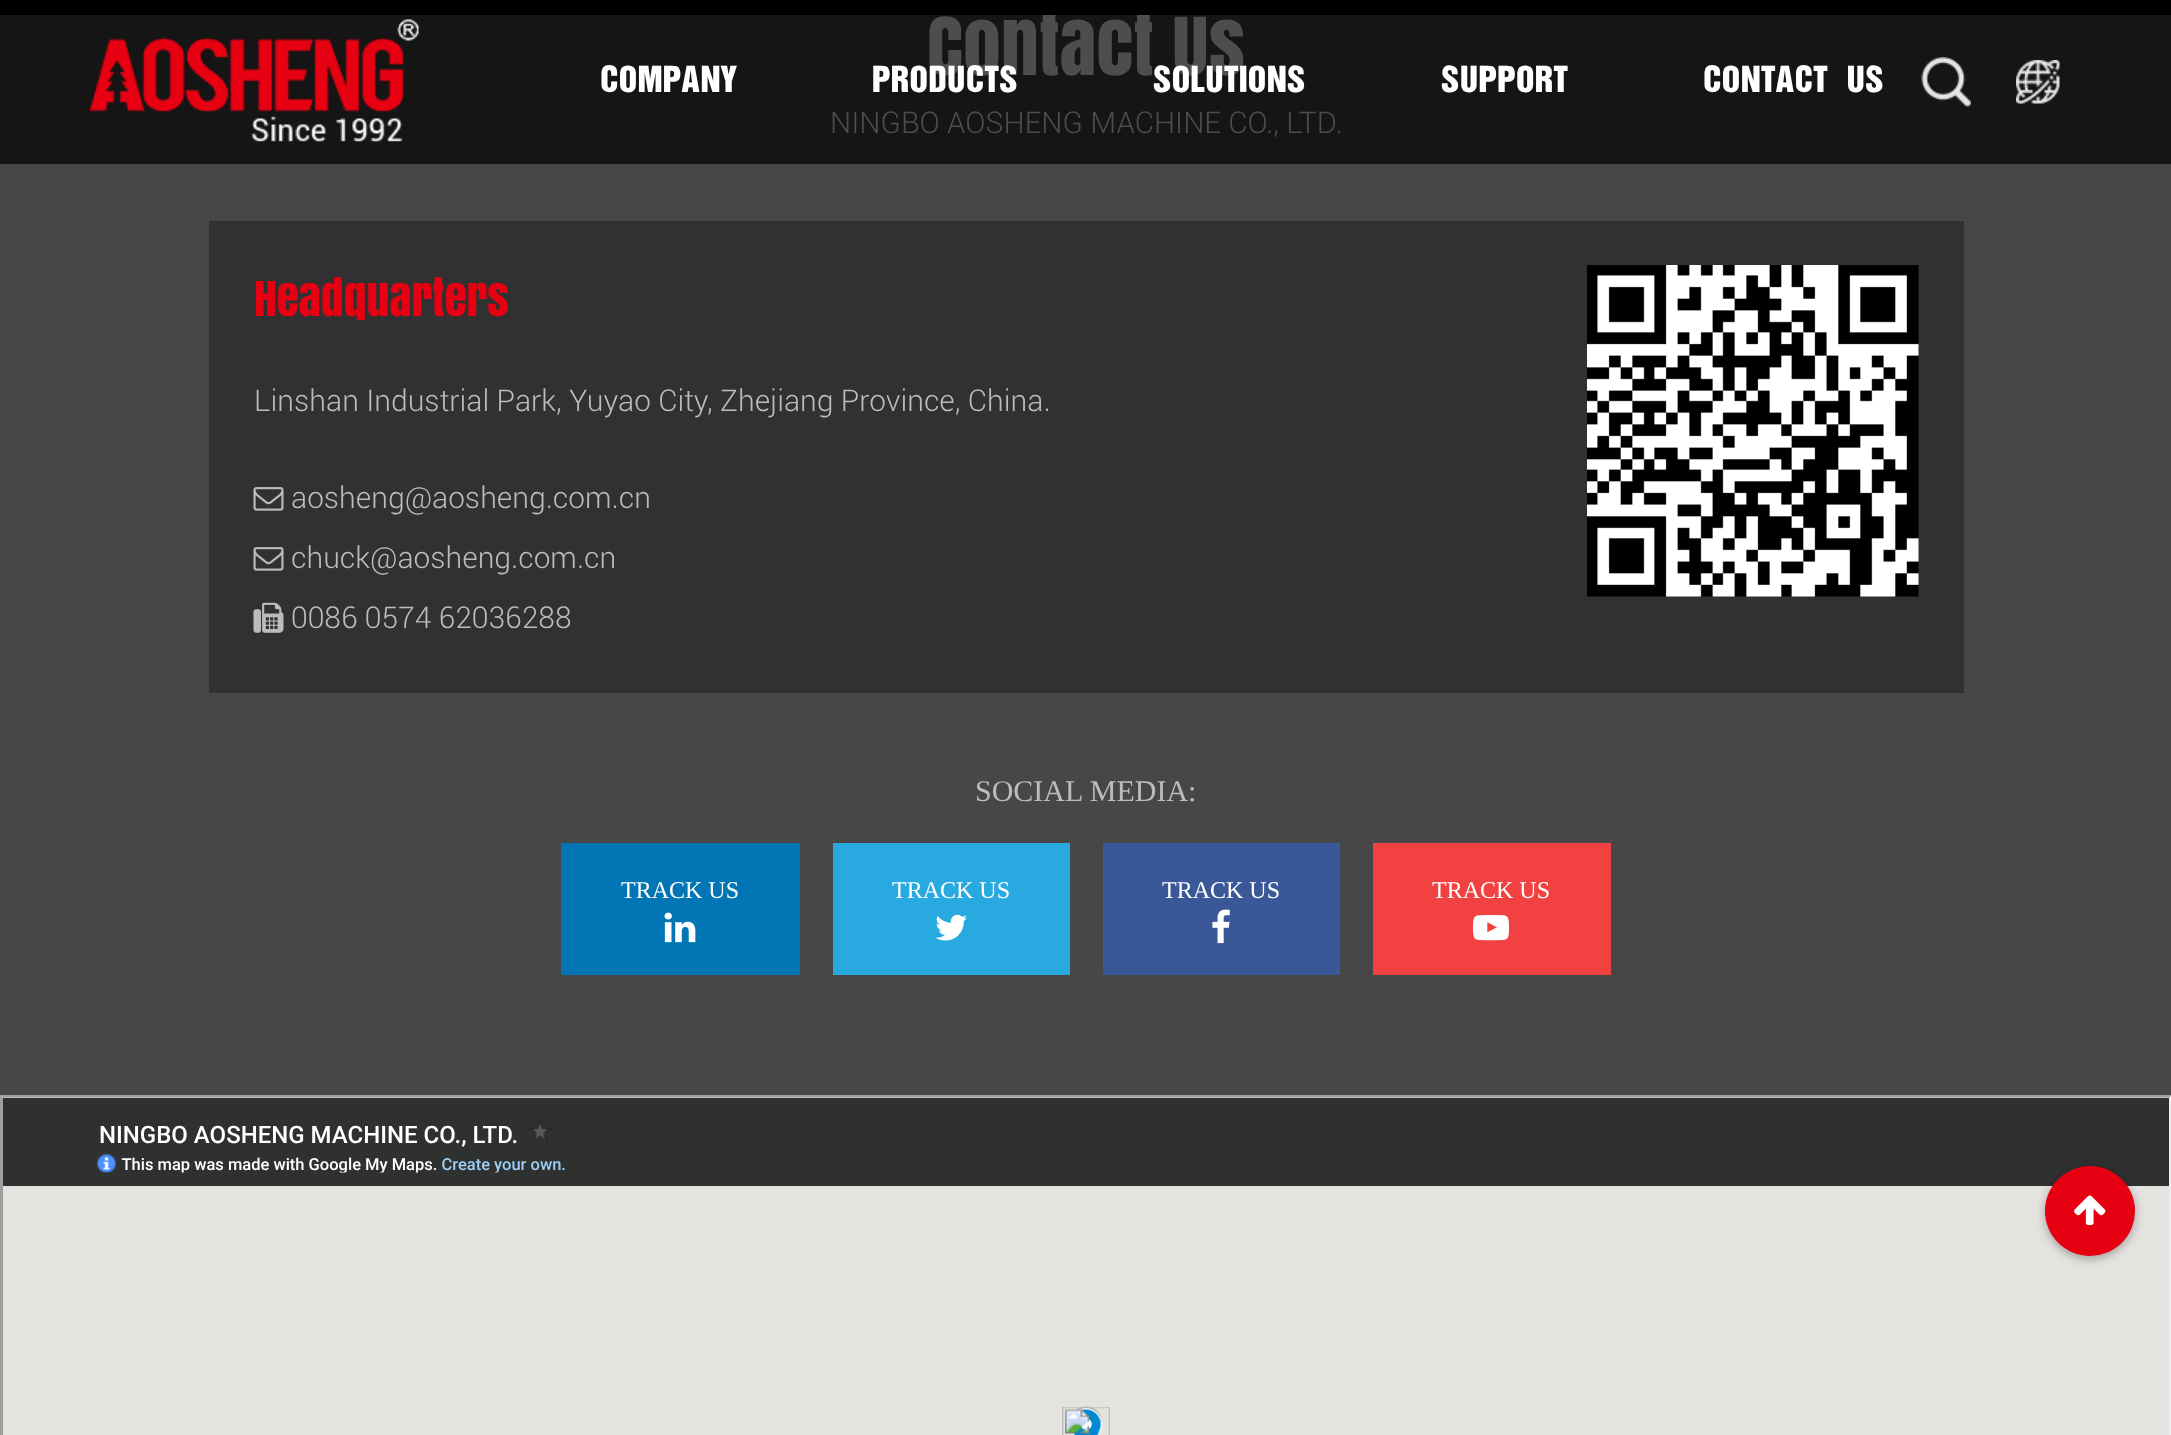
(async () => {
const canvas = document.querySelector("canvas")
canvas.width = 2171
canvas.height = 1435
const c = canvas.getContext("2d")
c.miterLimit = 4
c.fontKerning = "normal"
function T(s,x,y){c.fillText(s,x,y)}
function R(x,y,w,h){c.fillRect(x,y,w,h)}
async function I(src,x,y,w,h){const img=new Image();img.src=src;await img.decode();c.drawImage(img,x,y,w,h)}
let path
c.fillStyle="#fff"
R(0,0,2171,1435)
c.fillStyle="#474747"
R(0,164,2171,931)
c.fillStyle="#151515"
R(0,15,2171,149)
c.font="75px Anton"
c.fillStyle="#4d4d4d"
T("Contact Us",927,75)
c.font="300 30px Roboto"
T("NINGBO AOSHENG MACHINE CO., LTD.",830,133)
c.fillStyle="#313131"
R(209,221,1755,472)
c.font="45px Anton"
c.fillStyle="#e60012"
T("Headquarters",254,316)
c.font="300 30px Roboto"
c.fillStyle="#bcbcbc"
T("Linshan Industrial Park, Yuyao City, Zhejiang Province, China.",254,411)
await I("1.png",253,487,31,24)
T("aosheng@aosheng.com.cn",291,508)
await I("1.png",253,547,31,24)
T("chuck@aosheng.com.cn",291,568)
await I("2.png",253,602,31,31)
T("0086 0574 62036288",291,628)
await I("3.png",1587,265,332,332)
c.font="30px Liberation Serif"
T("SOCIAL MEDIA:",975,801)
c.fillStyle="#0276b5"
R(561,843,239,132)
c.font="24px Liberation Serif"
c.fillStyle="#fff"
T("TRACK US",621,898)
await I("4.png",664,912,32,31)
c.fillStyle="#28a9e0"
R(833,843,237,132)
c.fillStyle="#fff"
T("TRACK US",892,898)
await I("5.png",935,914,32,27)
c.fillStyle="#3a5898"
R(1103,843,237,132)
c.fillStyle="#fff"
T("TRACK US",1162,898)
await I("6.png",1212,909,18,35)
c.fillStyle="#f14141"
R(1373,843,238,132)
c.fillStyle="#fff"
T("TRACK US",1432,898)
await I("7.png",1473,915,36,26)
c.fillStyle="#9f9f9f"
path = new Path2D("M0 1095h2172l-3 3h-2166z")
c.fill(path)
path = new Path2D("M0 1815v-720l3 3v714z")
c.fill(path)
await I("8.png",3,1097,2166,338)
c.fillStyle="#eee"
path = new Path2D("M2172 1095v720l-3-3v-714z")
c.fill(path)
c.fillStyle="#000"
R(0,0,2171,15)
await I("9.png",90,19,329,123)
c.font="600 36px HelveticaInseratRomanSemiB"
c.fillStyle="#fff"
T("COMPANY",600,92)
T("PRODUCTS",872,92)
T("SOLUTIONS",1153,92)
T("SUPPORT",1441,92)
T("CONTACT US",1703,92)
await I("10.png",1921,57,50,50)
await I("11.png",2016,60,44,44)
c.fillStyle="#0000004d"
c.filter="blur(5px)"
c.beginPath()
c.roundRect(2045,1169,90,90,45)
c.fill()
c.filter="none"
c.fillStyle="#e60012"
c.beginPath()
c.arc(2090,1211,45,0,7)
c.fill()
await I("12.png",2074,1195,32,31)
})()
